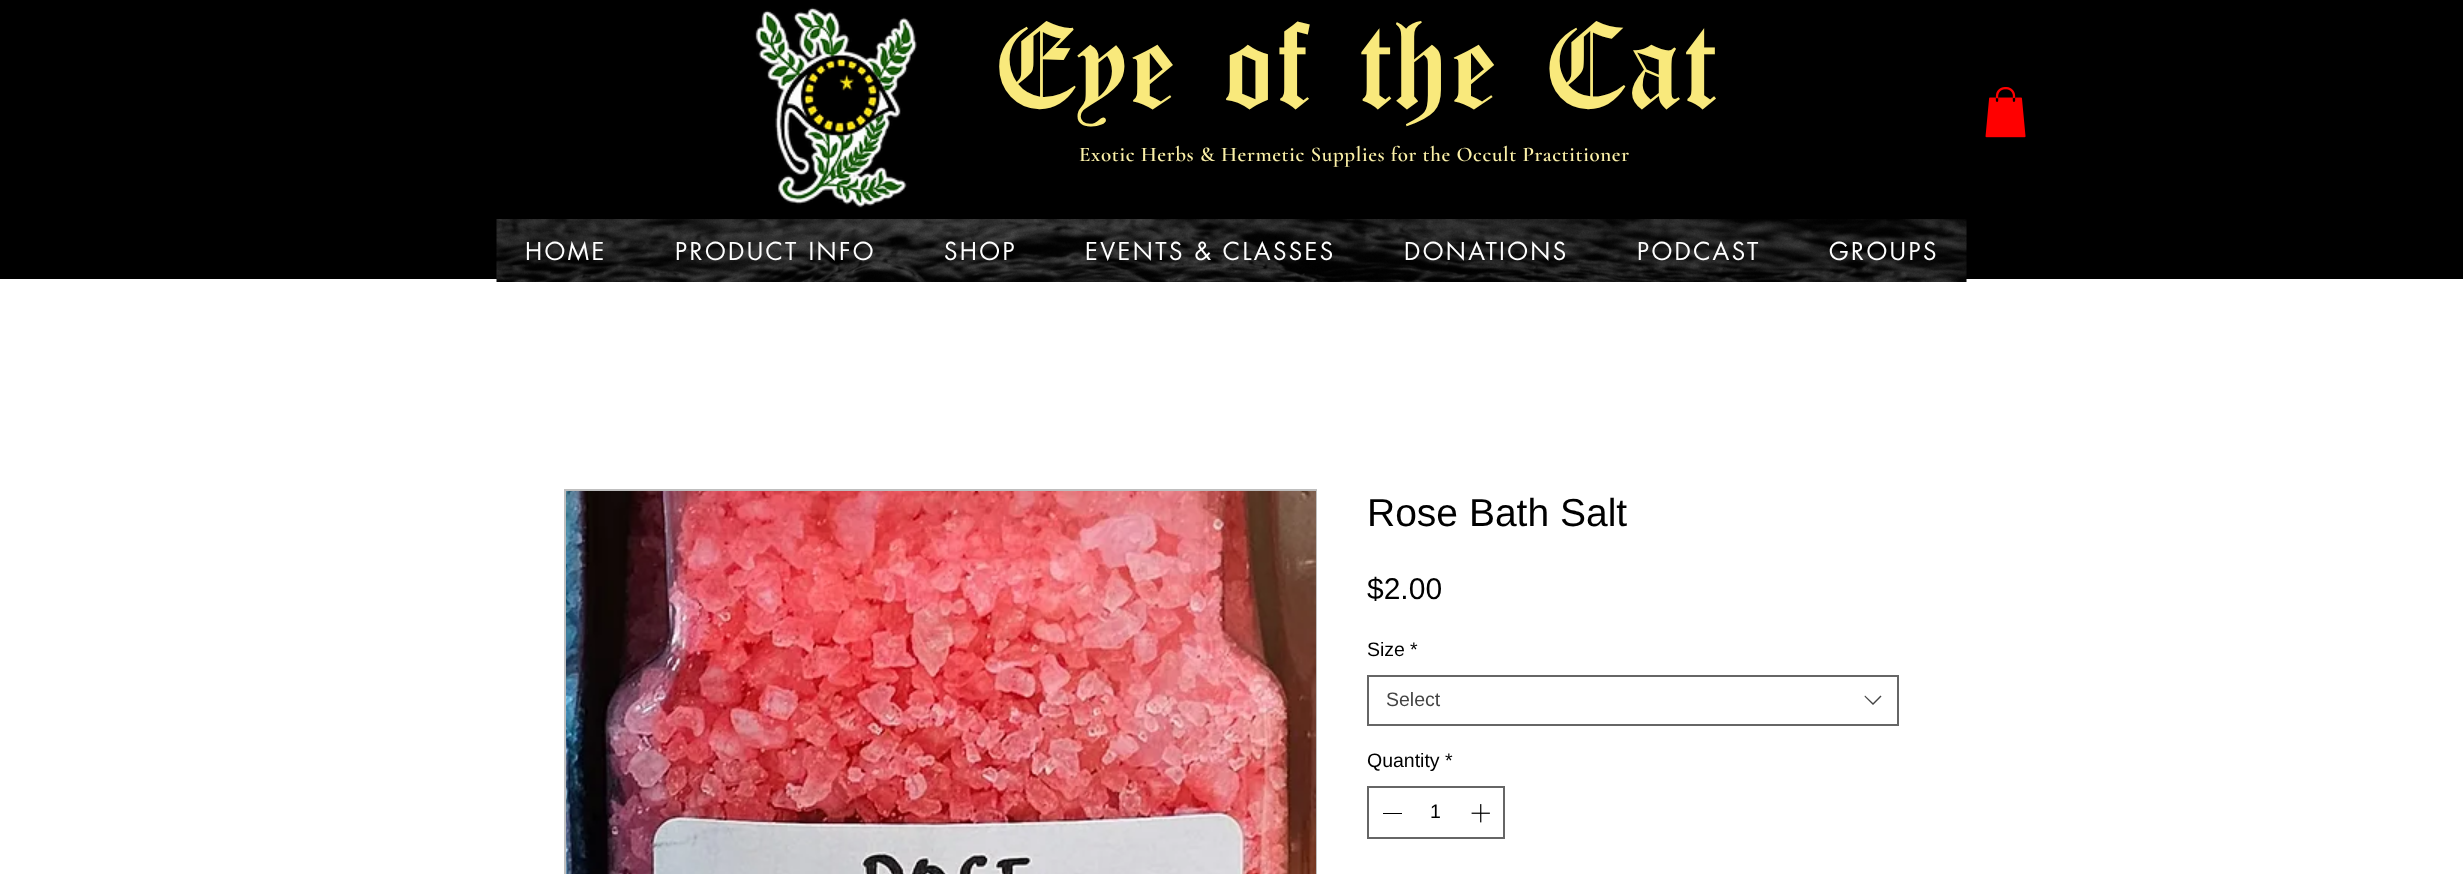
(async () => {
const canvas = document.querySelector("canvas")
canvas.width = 2463
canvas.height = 874
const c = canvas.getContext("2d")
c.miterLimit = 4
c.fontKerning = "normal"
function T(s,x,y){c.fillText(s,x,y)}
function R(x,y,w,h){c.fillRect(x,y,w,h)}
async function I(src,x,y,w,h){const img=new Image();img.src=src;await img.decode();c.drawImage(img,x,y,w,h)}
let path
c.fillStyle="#000"
R(0,0,2463,874)
await I("1.png",755,7,162,201)
c.font="90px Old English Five"
c.fillStyle="#f9e97c"
T("Eye of the Cat",993,108)
c.letterSpacing="0.63px"
c.font="600 21px Cormorant Garamond"
c.fillStyle="#fcf1a8"
T("Exotic Herbs & Hermetic Supplies for the Occult Practitioner",1079,161)
await I("2.png",1985,87,41,51)
c.fillStyle="#fff"
R(0,279,2463,595)
await I("3.png",496,219,1471,63)
c.letterSpacing="2.4px"
c.font="24px futura"
T("HOME",525,260)
T("PRODUCT INFO",675,260)
T("SHOP",944,260)
T("EVENTS & CLASSES",1085,260)
T("DONATIONS",1404,260)
T("PODCAST",1637,260)
T("GROUPS",1829,260)
c.strokeStyle="#bfbfbf"
c.lineWidth=2
c.strokeRect(565,490,751,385)
await I("4.png",566,491,750,383)
c.letterSpacing="0px"
c.font="39px Liberation Sans"
c.fillStyle="#000"
T("Rose Bath Salt",1367,526)
c.font="30px Liberation Sans"
T("$2.00",1367,599)
c.font="19.5px Liberation Sans"
T("Size",1367,656)
T("*",1410,656)
c.strokeStyle="#666"
c.strokeRect(1368,676,530,49)
c.fillStyle="#444"
T("Select",1386,706)
path = new Path2D("M1880.5 695.5l1 1l-8.5 8.5l-8.5-8.5l.5-1l8 7.5z")
c.fill(path,"evenodd")
c.fillStyle="#000"
T("Quantity",1367,767)
T("*",1445,767)
c.strokeRect(1368,787,136,51)
R(1383,813,19,1)
T("1",1430,818)
await I("5.png",1471,804,19,19)
})()
